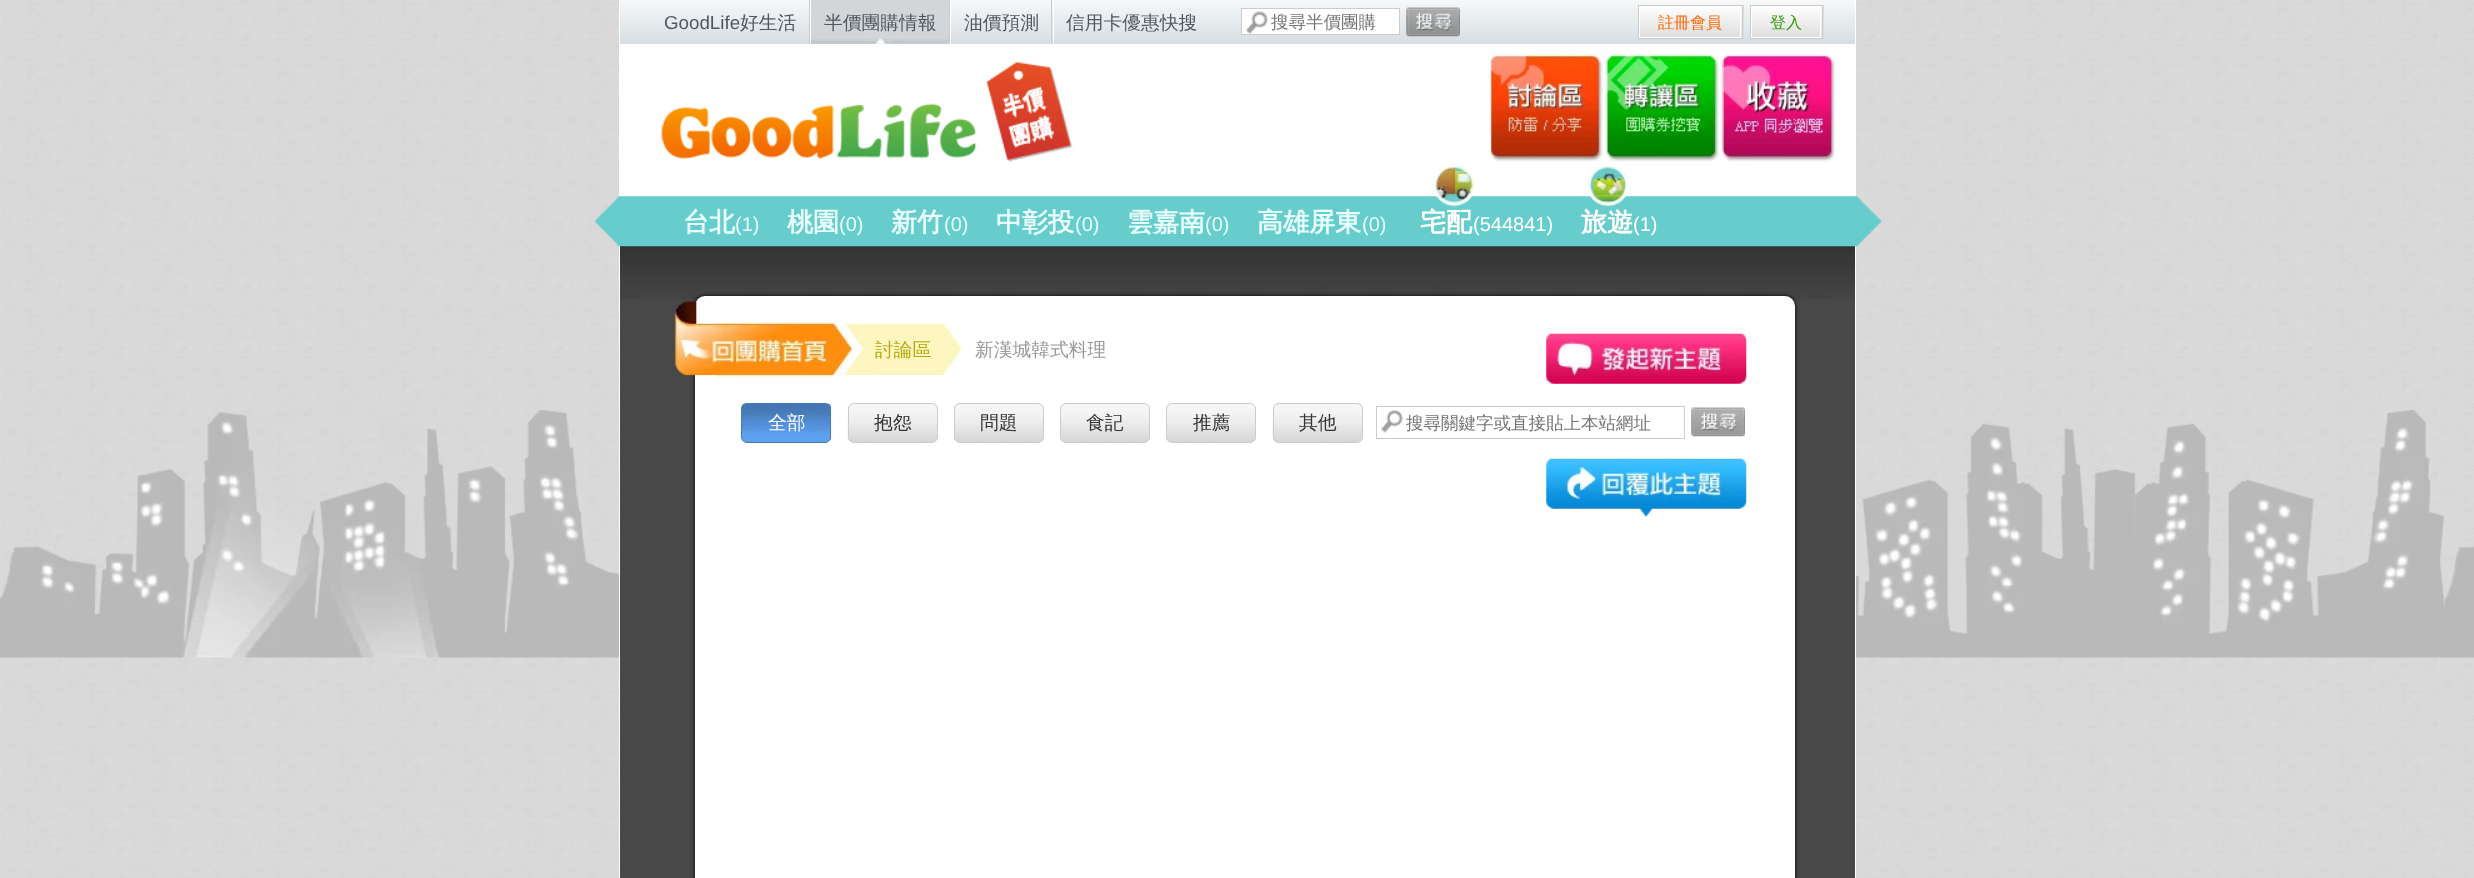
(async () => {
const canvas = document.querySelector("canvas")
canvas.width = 2474
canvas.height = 878
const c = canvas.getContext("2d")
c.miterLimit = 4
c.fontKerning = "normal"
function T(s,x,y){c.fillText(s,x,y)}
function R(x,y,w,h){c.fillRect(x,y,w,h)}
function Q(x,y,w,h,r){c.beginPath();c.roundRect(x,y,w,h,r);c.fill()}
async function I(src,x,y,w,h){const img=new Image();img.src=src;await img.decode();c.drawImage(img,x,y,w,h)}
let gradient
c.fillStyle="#fff"
R(0,0,2474,878)
await I("1.png",0,0,2474,878)
await I("2.png",0,410,2474,248)
gradient = c.createLinearGradient(620,0,620,44)
gradient.addColorStop(0,"#f6f8f9")
gradient.addColorStop(.99,"#d7dee3")
c.fillStyle = gradient
R(620,0,1235,44)
c.fillStyle="#fff"
R(1855,0,1,44)
R(619,0,1,44)
c.fillStyle="#ccc"
R(809,0,1,44)
c.font="18.75px Liberation Sans"
c.fillStyle="#4f5862"
T("GoodLife",664,29)
c.font="500 18.75px WenQuanYi Zen Hei"
T("好生活",740,29)
await I("3.png",811,0,138,44)
c.fillStyle="#ccc"
R(949,0,1,44)
c.fillStyle="#fff"
R(810,0,1,44)
c.fillStyle="#4f5862"
T("半價團購情報",824,29)
c.fillStyle="#ccc"
R(1051,0,1,44)
c.fillStyle="#fff"
R(950,0,1,44)
c.fillStyle="#4f5862"
T("油價預測",964,29)
c.fillStyle="#fff"
R(1053,0,1,44)
c.fillStyle="#4f5862"
T("信用卡優惠快搜",1066,29)
c.fillStyle="#fff"
R(1242,9,157,25)
await I("4.png",1246,11,22,23)
c.strokeStyle="#ccc"
c.strokeRect(1241.5,8.5,158,26)
c.font="500 17.5px WenQuanYi Zen Hei"
c.fillStyle="#757575"
T("搜尋半價團購",1271,28)
await I("5.png",1406,7,54,30)
c.fillStyle="#ddd"
R(1638,5,106,35)
gradient = c.createLinearGradient(1690,6.2,1690,38)
gradient.addColorStop(0,"#fff")
gradient.addColorStop(1,"#ddd")
c.fillStyle = gradient
R(1640,6,102,30)
c.strokeStyle="#fff"
c.strokeRect(1639.5,6.5,101,31)
c.strokeStyle="#ccc"
c.strokeRect(1638.5,5.5,104,33)
c.font="500 16px WenQuanYi Zen Hei"
c.fillStyle="#f60"
T("註冊會員",1658,28)
c.fillStyle="#ddd"
R(1750,5,74,35)
gradient = c.createLinearGradient(1786,6.2,1786,38)
gradient.addColorStop(0,"#fff")
gradient.addColorStop(1,"#ddd")
c.fillStyle = gradient
R(1752,6,70,30)
c.strokeStyle="#fff"
c.strokeRect(1751.5,6.5,69,31)
c.strokeStyle="#ccc"
c.strokeRect(1750.5,5.5,72,33)
c.fillStyle="#390"
T("登入",1770,28)
c.fillStyle="#fff"
R(619,44,1237,834)
await I("6.png",661,62,412,100)
await I("7.png",1486,50,119,112)
await I("8.png",1605,50,119,112)
await I("9.png",1723,50,113,112)
await I("13.png",620,245,1235,54)
await I("10.png",595,196,1287,51)
c.font="bold 26px WenQuanYi Zen Hei"
c.fillStyle="#e8ffff"
T("台北",683,231)
c.font="20px Liberation Sans"
T("(1)",735,231)
c.font="bold 26px WenQuanYi Zen Hei"
T("桃園",787,231)
c.font="20px Liberation Sans"
T("(0)",839,231)
c.font="bold 26px WenQuanYi Zen Hei"
T("新竹",891,231)
c.font="20px Liberation Sans"
T("(0)",944,231)
c.font="bold 26px WenQuanYi Zen Hei"
T("中彰投",996,231)
c.font="20px Liberation Sans"
T("(0)",1075,231)
c.font="bold 26px WenQuanYi Zen Hei"
T("雲嘉南",1127,231)
c.font="20px Liberation Sans"
T("(0)",1205,231)
c.font="bold 26px WenQuanYi Zen Hei"
T("高雄屏東",1257,231)
c.font="20px Liberation Sans"
T("(0)",1362,231)
await I("11.png",1434,164,41,43)
c.font="bold 26px WenQuanYi Zen Hei"
c.fillStyle="#fff"
T("宅配",1420,231)
c.font="20px Liberation Sans"
T("(544841)",1473,231)
await I("12.png",1588,164,41,43)
c.font="bold 26px WenQuanYi Zen Hei"
T("旅遊",1581,231)
c.font="20px Liberation Sans"
T("(1)",1633,231)
c.fillStyle="#484848"
R(620,299,1235,579)
c.fillStyle="#000"
c.filter="blur(2px)"
c.beginPath()
c.roundRect(695,296,1100,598,10)
c.fill()
c.filter="none"
c.fillStyle="#fff"
Q(695,296,1100,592,10)
await I("14.png",674,301,181,77)
await I("15.png",843,323,35,52)
await I("16.png",875,323,88,52)
c.font="500 18.75px WenQuanYi Zen Hei"
c.fillStyle="#b7a609"
T("討論區",875,356)
c.fillStyle="#999"
T("新漢城韓式料理",975,356)
await I("17.png",1546,333,201,51)
await I("18.png",741,403,91,40)
c.beginPath()
c.roundRect(741.5,403.5,89,39,5.5)
c.strokeStyle="#4679b5"
c.stroke()
c.fillStyle="#fff"
T("全部",768,429)
await I("19.png",847,404,91,39)
c.beginPath()
c.roundRect(848.5,403.5,89,39,5.5)
c.strokeStyle="#ccc"
c.stroke()
c.fillStyle="#333"
T("抱怨",874,429)
await I("20.png",954,404,90,39)
c.beginPath()
c.roundRect(954.5,403.5,89,39,5.5)
c.stroke()
T("問題",980,429)
await I("21.png",1060,404,90,39)
c.beginPath()
c.roundRect(1060.5,403.5,89,39,5.5)
c.stroke()
T("食記",1086,429)
await I("22.png",1166,404,90,39)
c.beginPath()
c.roundRect(1166.5,403.5,89,39,5.5)
c.stroke()
T("推薦",1193,429)
await I("19.png",1272,404,91,39)
c.beginPath()
c.roundRect(1273.5,403.5,89,39,5.5)
c.stroke()
T("其他",1299,429)
await I("23.png",1546,458,201,60)
await I("24.png",1381,410,22,23)
c.strokeRect(1376.5,406.5,308,32)
c.font="500 17.5px WenQuanYi Zen Hei"
c.fillStyle="#757575"
T("搜尋關鍵字或直接貼上本站網址",1406,429)
await I("25.png",1691,407,54,30)
})()
